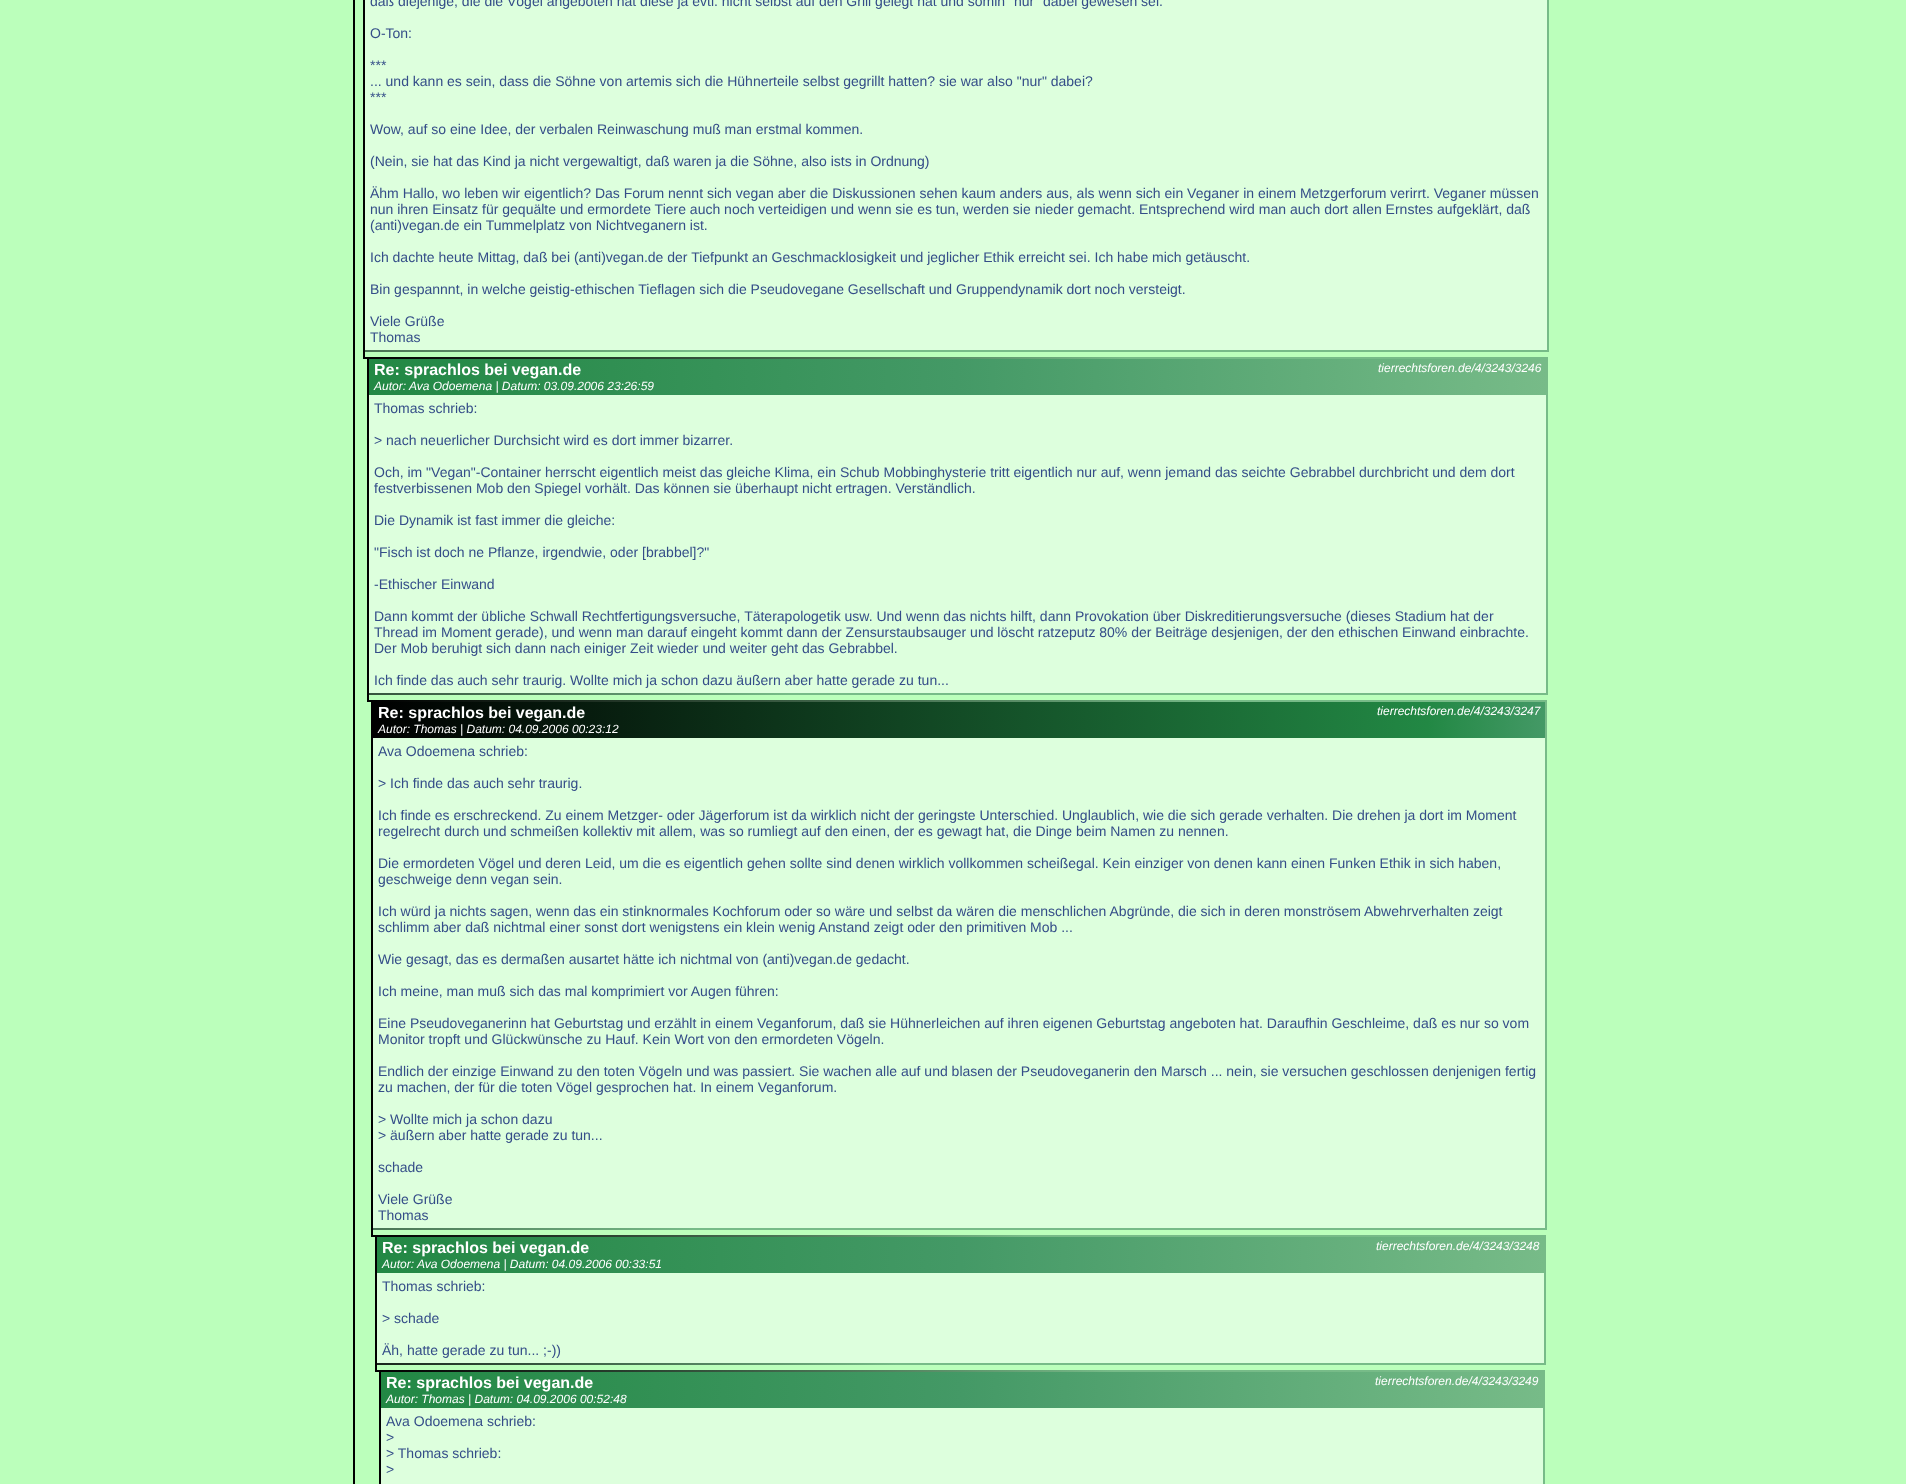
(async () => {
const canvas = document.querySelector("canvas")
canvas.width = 1906
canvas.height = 1484
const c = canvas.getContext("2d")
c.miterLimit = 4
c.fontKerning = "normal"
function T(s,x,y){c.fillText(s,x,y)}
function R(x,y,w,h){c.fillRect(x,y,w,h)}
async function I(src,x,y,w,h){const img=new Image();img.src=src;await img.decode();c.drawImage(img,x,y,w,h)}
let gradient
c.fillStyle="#bfb"
R(0,0,1906,1484)
c.fillStyle="#000"
R(353,0,2,1484)
R(363,0,2,357)
c.fillStyle="#dfd"
R(365,0,1182,350)
await I("1.png",365,0,1184,352)
c.font="14px Liberation Sans"
c.fillStyle="#344d88"
T("daß diejenige, die die Vögel angeboten hat diese ja evtl. nicht selbst auf den Grill gelegt hat und somin \"nur\" dabei gewesen sei.",370,6)
T("O-Ton:",370,38)
T("***",370,70)
T("... und kann es sein, dass die Söhne von artemis sich die Hühnerteile selbst gegrillt hatten? sie war also \"nur\" dabei?",370,86)
T("***",370,102)
T("Wow, auf so eine Idee, der verbalen Reinwaschung muß man erstmal kommen.",370,134)
T("(Nein, sie hat das Kind ja nicht vergewaltigt, daß waren ja die Söhne, also ists in Ordnung)",370,166)
T("Ähm Hallo, wo leben wir eigentlich? Das Forum nennt sich vegan aber die Diskussionen sehen kaum anders aus, als wenn sich ein Veganer in einem Metzgerforum verirrt. Veganer müssen",370,198)
T("nun ihren Einsatz für gequälte und ermordete Tiere auch noch verteidigen und wenn sie es tun, werden sie nieder gemacht. Entsprechend wird man auch dort allen Ernstes aufgeklärt, daß",370,214)
T("(anti)vegan.de ein Tummelplatz von Nichtveganern ist.",370,230)
T("Ich dachte heute Mittag, daß bei (anti)vegan.de der Tiefpunkt an Geschmacklosigkeit und jeglicher Ethik erreicht sei. Ich habe mich getäuscht.",370,262)
T("Bin gespannnt, in welche geistig-ethischen Tieflagen sich die Pseudovegane Gesellschaft und Gruppendynamik dort noch versteigt.",370,294)
T("Viele Grüße",370,326)
T("Thomas",370,342)
c.fillStyle="#000"
R(363,357,6,2)
R(367,357,2,338)
c.fillStyle="#dfd"
R(369,395,1177,298)
await I("2.png",369,357,1179,338)
gradient = c.createLinearGradient(369,377,1546,377)
gradient.addColorStop(0,"#284")
gradient.addColorStop(.5,"#496")
gradient.addColorStop(1,"#7b8")
c.fillStyle = gradient
R(369,359,1177,36)
c.font="bold 16px Liberation Sans"
c.fillStyle="#fff"
T("Re: sprachlos bei vegan.de",374,375)
c.font="italic 12px Liberation Sans"
T("tierrechtsforen.de/4/3243/3246",1378,372)
T("Autor: Ava Odoemena | Datum: 03.09.2006 23:26:59",374,390)
c.font="14px Liberation Sans"
c.fillStyle="#344d88"
T("Thomas schrieb:",374,413)
T("> nach neuerlicher Durchsicht wird es dort immer bizarrer.",374,445)
T("Och, im \"Vegan\"-Container herrscht eigentlich meist das gleiche Klima, ein Schub Mobbinghysterie tritt eigentlich nur auf, wenn jemand das seichte Gebrabbel durchbricht und dem dort",374,477)
T("festverbissenen Mob den Spiegel vorhält. Das können sie überhaupt nicht ertragen. Verständlich.",374,493)
T("Die Dynamik ist fast immer die gleiche:",374,525)
T("\"Fisch ist doch ne Pflanze, irgendwie, oder [brabbel]?\"",374,557)
T("-Ethischer Einwand",374,589)
T("Dann kommt der übliche Schwall Rechtfertigungsversuche, Täterapologetik usw. Und wenn das nichts hilft, dann Provokation über Diskreditierungsversuche (dieses Stadium hat der",374,621)
T("Thread im Moment gerade), und wenn man darauf eingeht kommt dann der Zensurstaubsauger und löscht ratzeputz 80% der Beiträge desjenigen, der den ethischen Einwand einbrachte.",374,637)
T("Der Mob beruhigt sich dann nach einiger Zeit wieder und weiter geht das Gebrabbel.",374,653)
T("Ich finde das auch sehr traurig. Wollte mich ja schon dazu äußern aber hatte gerade zu tun...",374,685)
c.fillStyle="#000"
R(367,695,2,5)
R(367,700,6,2)
R(371,700,2,530)
c.fillStyle="#dfd"
R(373,738,1172,490)
await I("3.png",373,700,1174,530)
gradient = c.createLinearGradient(373,720,1545,720)
gradient.addColorStop(0,"#000")
gradient.addColorStop(.9,"#284")
gradient.addColorStop(1,"#496")
c.fillStyle = gradient
R(373,702,1172,36)
c.font="bold 16px Liberation Sans"
c.fillStyle="#fff"
T("Re: sprachlos bei vegan.de",378,718)
c.font="italic 12px Liberation Sans"
T("tierrechtsforen.de/4/3243/3247",1377,715)
T("Autor: Thomas | Datum: 04.09.2006 00:23:12",378,733)
c.font="14px Liberation Sans"
c.fillStyle="#344d88"
T("Ava Odoemena schrieb:",378,756)
T("> Ich finde das auch sehr traurig.",378,788)
T("Ich finde es erschreckend. Zu einem Metzger- oder Jägerforum ist da wirklich nicht der geringste Unterschied. Unglaublich, wie die sich gerade verhalten. Die drehen ja dort im Moment",378,820)
T("regelrecht durch und schmeißen kollektiv mit allem, was so rumliegt auf den einen, der es gewagt hat, die Dinge beim Namen zu nennen.",378,836)
T("Die ermordeten Vögel und deren Leid, um die es eigentlich gehen sollte sind denen wirklich vollkommen scheißegal. Kein einziger von denen kann einen Funken Ethik in sich haben,",378,868)
T("geschweige denn vegan sein.",378,884)
T("Ich würd ja nichts sagen, wenn das ein stinknormales Kochforum oder so wäre und selbst da wären die menschlichen Abgründe, die sich in deren monströsem Abwehrverhalten zeigt",378,916)
T("schlimm aber daß nichtmal einer sonst dort wenigstens ein klein wenig Anstand zeigt oder den primitiven Mob ...",378,932)
T("Wie gesagt, das es dermaßen ausartet hätte ich nichtmal von (anti)vegan.de gedacht.",378,964)
T("Ich meine, man muß sich das mal komprimiert vor Augen führen:",378,996)
T("Eine Pseudoveganerinn hat Geburtstag und erzählt in einem Veganforum, daß sie Hühnerleichen auf ihren eigenen Geburtstag angeboten hat. Daraufhin Geschleime, daß es nur so vom",378,1028)
T("Monitor tropft und Glückwünsche zu Hauf. Kein Wort von den ermordeten Vögeln.",378,1044)
T("Endlich der einzige Einwand zu den toten Vögeln und was passiert. Sie wachen alle auf und blasen der Pseudoveganerin den Marsch ... nein, sie versuchen geschlossen denjenigen fertig",378,1076)
T("zu machen, der für die toten Vögel gesprochen hat. In einem Veganforum.",378,1092)
T("> Wollte mich ja schon dazu",378,1124)
T("> äußern aber hatte gerade zu tun...",378,1140)
T("schade",378,1172)
T("Viele Grüße",378,1204)
T("Thomas",378,1220)
c.fillStyle="#000"
R(371,1230,2,5)
R(371,1235,6,2)
R(375,1235,2,130)
c.fillStyle="#dfd"
R(377,1273,1167,90)
await I("4.png",377,1235,1169,130)
gradient = c.createLinearGradient(377,1255,1544,1255)
gradient.addColorStop(0,"#284")
gradient.addColorStop(.5,"#496")
gradient.addColorStop(1,"#7b8")
c.fillStyle = gradient
R(377,1237,1167,36)
c.font="bold 16px Liberation Sans"
c.fillStyle="#fff"
T("Re: sprachlos bei vegan.de",382,1253)
c.font="italic 12px Liberation Sans"
T("tierrechtsforen.de/4/3243/3248",1376,1250)
T("Autor: Ava Odoemena | Datum: 04.09.2006 00:33:51",382,1268)
c.font="14px Liberation Sans"
c.fillStyle="#344d88"
T("Thomas schrieb:",382,1291)
T("> schade",382,1323)
T("Äh, hatte gerade zu tun... ;-))",382,1355)
c.fillStyle="#000"
R(375,1365,2,5)
R(375,1370,6,2)
R(379,1370,2,114)
c.fillStyle="#dfd"
R(381,1408,1162,76)
await I("5.png",381,1370,1164,114)
gradient = c.createLinearGradient(381,1390,1543,1390)
gradient.addColorStop(0,"#284")
gradient.addColorStop(.5,"#496")
gradient.addColorStop(1,"#7b8")
c.fillStyle = gradient
R(381,1372,1162,36)
c.font="bold 16px Liberation Sans"
c.fillStyle="#fff"
T("Re: sprachlos bei vegan.de",386,1388)
c.font="italic 12px Liberation Sans"
T("tierrechtsforen.de/4/3243/3249",1375,1385)
T("Autor: Thomas | Datum: 04.09.2006 00:52:48",386,1403)
c.font="14px Liberation Sans"
c.fillStyle="#344d88"
T("Ava Odoemena schrieb:",386,1426)
T(">",386,1442)
T("> Thomas schrieb:",386,1458)
T(">",386,1474)
})()
